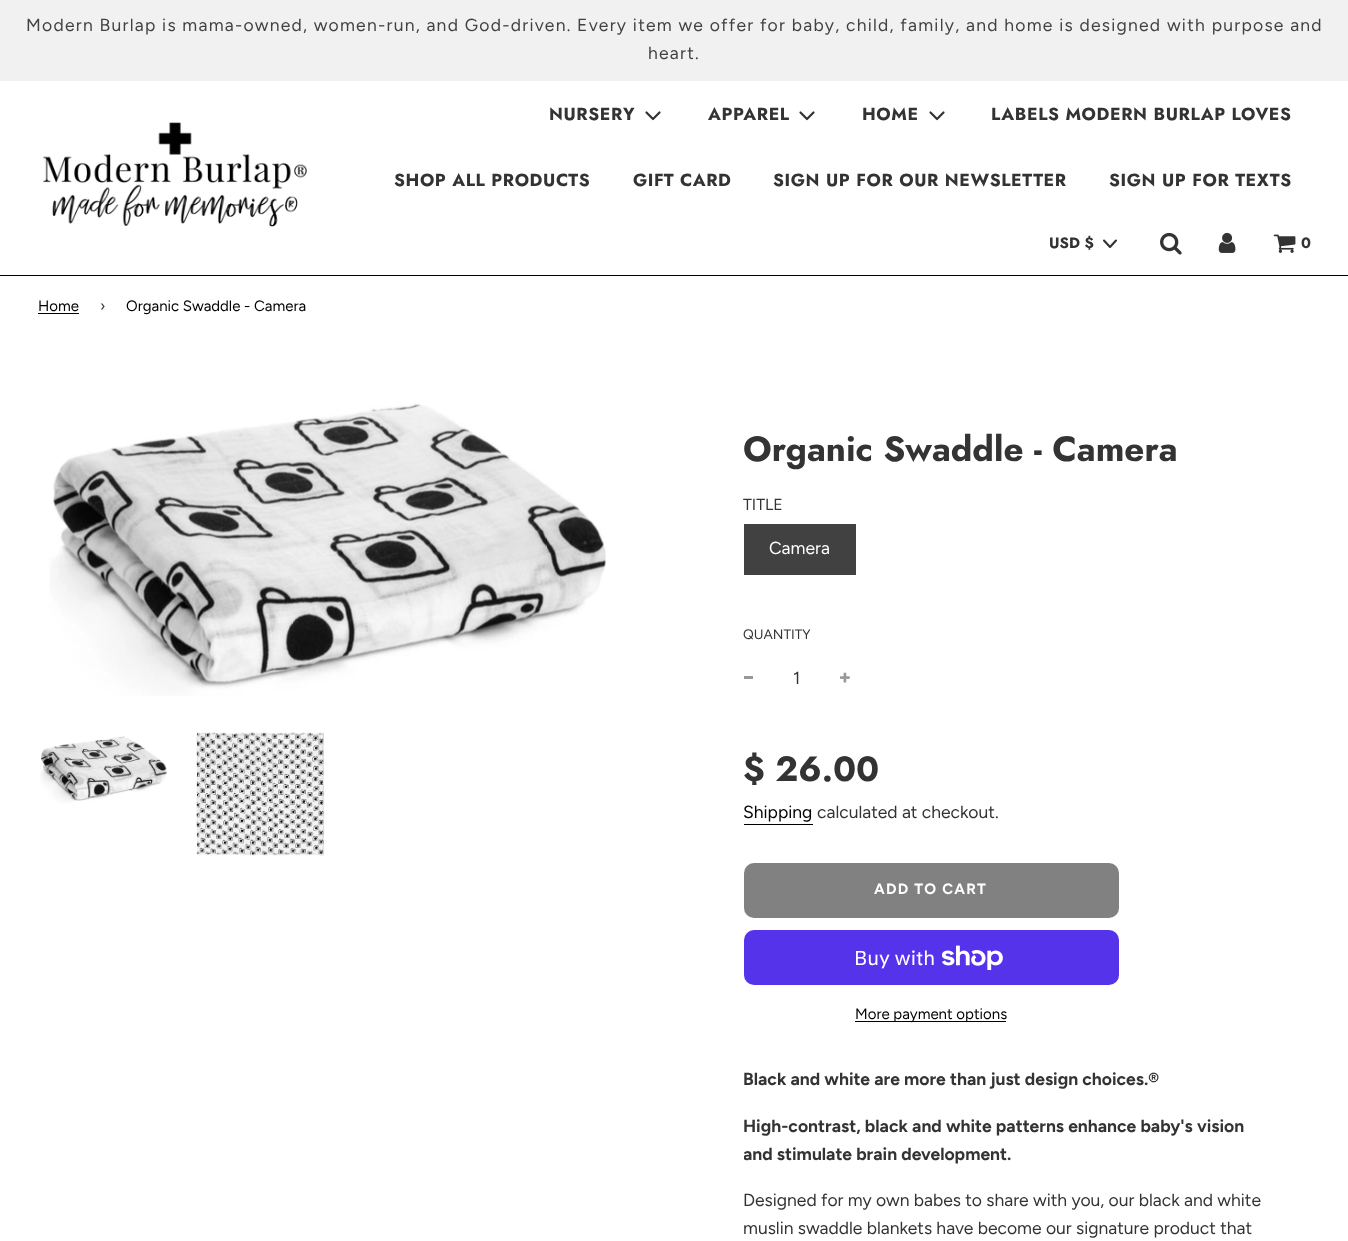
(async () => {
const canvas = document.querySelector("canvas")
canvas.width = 1348
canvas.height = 1241
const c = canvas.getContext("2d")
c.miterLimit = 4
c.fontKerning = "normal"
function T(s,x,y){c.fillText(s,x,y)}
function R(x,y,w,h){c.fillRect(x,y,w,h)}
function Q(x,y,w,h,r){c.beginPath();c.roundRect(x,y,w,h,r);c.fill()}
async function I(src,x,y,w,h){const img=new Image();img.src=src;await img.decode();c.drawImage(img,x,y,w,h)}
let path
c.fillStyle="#fff"
R(0,0,1348,1241)
c.fillStyle="#f1f1f1"
R(0,0,1348,81)
c.letterSpacing="1.25px"
c.font="17.5px Figtree"
c.fillStyle="#424242"
T("Modern Burlap is mama-owned, women-run, and God-driven. Every item we offer for baby, child, family, and home is designed with purpose and",26,31)
T("heart.",648,59)
c.fillStyle="#000"
R(0,275,1348,1)
await I("1.png",43,122,264,105)
c.letterSpacing="0.6px"
c.font="bold 17.5px Jost"
c.fillStyle="#333"
T("NURSERY",549,120)
path = new Path2D("M646.5 112.5l6.5 6.5l6.5-6.5")
c.strokeStyle="#333"
c.lineWidth=2.2
c.lineCap="round"
c.lineJoin="round"
c.stroke(path)
T("APPAREL",708,120)
path = new Path2D("M800.5 112.5l6.5 6.5l6.5-6.5")
c.stroke(path)
T("HOME",862,120)
path = new Path2D("M930.5 112.5l6.5 6.5l6.5-6.5")
c.stroke(path)
T("LABELS MODERN BURLAP LOVES",991,120)
T("SHOP ALL PRODUCTS",394,186)
T("GIFT CARD",633,186)
T("SIGN UP FOR OUR NEWSLETTER",773,186)
T("SIGN UP FOR TEXTS",1109,186)
c.letterSpacing="0px"
c.font="bold 15px Jost"
T("USD $",1049,248)
path = new Path2D("M1104 240.5l6 6.5l6-6.5")
c.lineWidth=2.1
c.stroke(path)
await I("2.png",1160,232,22,23)
await I("3.png",1218,232,18,21)
await I("4.png",1273,234,23,19)
T("0",1301,248)
c.font="15px Figtree"
c.fillStyle="#000"
T("Home",38,311)
R(38,313,41,1)
c.fillStyle="#333"
T("›",100,311)
c.fillStyle="#000"
T("Organic Swaddle - Camera",126,311)
await I("5.png",49,403,557,293)
await I("6.png",40,736,127,67)
await I("7.png",196,732,130,124)
c.font="bold 35px Jost"
c.fillStyle="#333"
T("Organic Swaddle - Camera",743,461)
c.font="16px Figtree"
T("TITLE",743,510)
c.fillStyle="#414141"
R(744,524,112,51)
c.font="17.5px Figtree"
c.fillStyle="#fff"
T("Camera",769,554)
c.font="13.75px Figtree"
c.fillStyle="#333"
T("QUANTITY",743,639)
c.fillStyle="#999"
R(744,676,9,3)
c.font="17.5px Figtree"
c.fillStyle="#333"
T("1",793,684)
await I("8.png",840,672,10,11)
c.font="bold 35px Jost"
T("$ 26.00",743,781)
c.font="17.5px Figtree"
c.fillStyle="#000"
T("Shipping",743,818)
R(744,824,69,1)
c.fillStyle="#333"
T("calculated at checkout.",817,818)
c.fillStyle="#818181"
Q(744,863,375,55,10)
c.letterSpacing="1.25px"
c.font="bold 15px Figtree"
c.fillStyle="#fff"
T("ADD TO CART",874,894)
c.fillStyle="#5433eb"
Q(744,930,375,55,10)
c.letterSpacing="0px"
c.font="20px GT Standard"
c.fillStyle="#fff"
T("Buy with",854,965)
await I("9.png",941,945,62,25)
c.fillStyle="#000"
R(855,1021,151,1)
c.font="15px Figtree"
T("More payment options",855,1019)
c.font="bold 17.5px Figtree"
c.fillStyle="#333"
T("Black and white are more than just design choices.®",743,1085)
T("High-contrast, black and white patterns enhance baby's vision",743,1132)
c.save()
c.beginPath()
c.rect(744,1066,517,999)
c.clip()
T("and stimulate brain development.",743,1160)
c.restore()
c.font="17.5px Figtree"
T("Designed for my own babes to share with you, our black and white",743,1206)
T("muslin swaddle blankets have become our signature product that",743,1234)
})()
